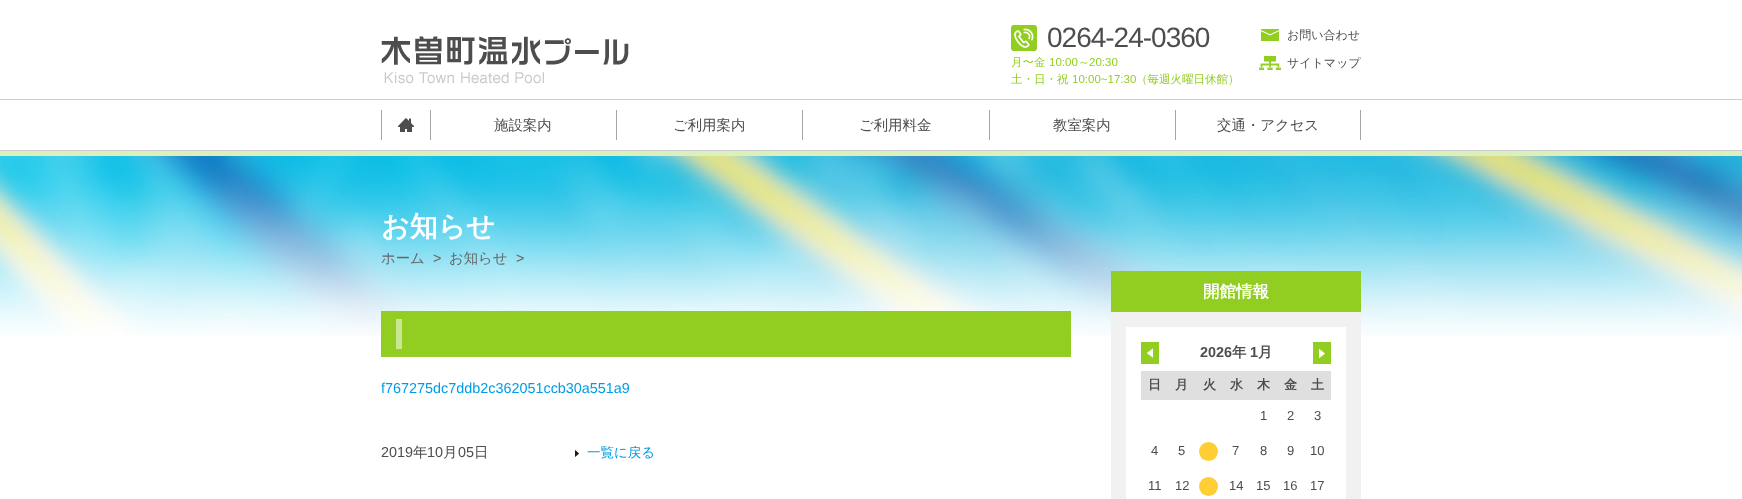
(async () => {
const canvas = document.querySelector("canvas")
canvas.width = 1742
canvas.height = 499
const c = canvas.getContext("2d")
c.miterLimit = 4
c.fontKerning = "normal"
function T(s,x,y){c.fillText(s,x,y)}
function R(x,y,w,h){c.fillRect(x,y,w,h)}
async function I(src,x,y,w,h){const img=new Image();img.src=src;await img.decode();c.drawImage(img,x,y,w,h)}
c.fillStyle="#fff"
R(0,0,1742,499)
c.fillStyle="#ccc"
R(0,99,1742,1)
await I("1.png",381,36,248,48)
await I("2.png",1011,25,26,26)
c.letterSpacing="-1px"
c.font="28px Liberation Sans"
c.fillStyle="#4d4d4d"
T("0264-24-0360",1047,47)
c.letterSpacing="0px"
c.font="500 11.5px WenQuanYi Zen Hei"
c.fillStyle="#92ce21"
T("月〜金",1011,66)
c.font="11.5px Liberation Sans"
T("10:00",1049,66)
c.font="500 11.5px WenQuanYi Zen Hei"
T("～",1078,66)
c.font="11.5px Liberation Sans"
T("20:30",1089,66)
c.font="500 11.5px WenQuanYi Zen Hei"
T("土・日・祝",1011,83)
c.font="11.5px Liberation Sans"
T("10:00~17:30",1072,83)
c.font="500 11.5px WenQuanYi Zen Hei"
T("（毎週火曜日休館）",1136,83)
await I("3.png",1261,29,18,12)
c.font="500 12px WenQuanYi Zen Hei"
c.fillStyle="#4d4d4d"
T("お問い合わせ",1287,39)
await I("4.png",1259,56,22,14)
T("サイトマップ",1287,67)
c.fillStyle="#a6a6a6"
R(381,110,1,30)
await I("5.png",398,118,16,14)
R(430,110,1,30)
c.font="500 14.4px WenQuanYi Zen Hei"
c.fillStyle="#4d4d4d"
T("施設案内",494,130)
c.fillStyle="#a6a6a6"
R(616,110,1,30)
c.fillStyle="#4d4d4d"
T("ご利用案内",673,130)
c.fillStyle="#a6a6a6"
R(802,110,1,30)
c.fillStyle="#4d4d4d"
T("ご利用料金",859,130)
c.fillStyle="#a6a6a6"
R(989,110,1,30)
c.fillStyle="#4d4d4d"
T("教室案内",1053,130)
c.fillStyle="#a6a6a6"
R(1175,110,1,30)
c.fillStyle="#4d4d4d"
T("交通・アクセス",1217,130)
c.fillStyle="#a6a6a6"
R(1360,110,1,30)
c.fillStyle="#dcf0bc"
R(0,151,1742,5)
c.fillStyle="#ccc"
R(0,150,1742,1)
await I("6.png",0,156,1742,180)
c.font="bold 28px WenQuanYi Zen Hei"
c.fillStyle="#fff"
T("お知らせ",381,236)
c.font="500 14.4px WenQuanYi Zen Hei"
c.fillStyle="#666"
T("ホーム",381,263)
c.font="14.4px Liberation Sans"
T(">",433,263)
c.font="500 14.4px WenQuanYi Zen Hei"
T("お知らせ",449,263)
c.font="14.4px Liberation Sans"
T(">",516,263)
c.fillStyle="#92ce21"
R(381,311,690,46)
c.fillStyle="#c9e790"
R(396,319,6,30)
c.fillStyle="#009ce5"
T("f767275dc7ddb2c362051ccb30a551a9",381,393)
c.fillStyle="#f1f1f1"
R(1111,312,250,187)
c.fillStyle="#92ce21"
R(1111,271,250,41)
c.font="bold 16.5px WenQuanYi Zen Hei"
c.fillStyle="#fff"
T("開館情報",1203,297)
R(1126,327,220,172)
c.fillStyle="#92ce21"
R(1141,342,18,22)
await I("7.png",1147,348,6,10)
c.font="bold 14.4px Liberation Sans"
c.fillStyle="#4d4d4d"
T("2026",1200,357)
c.font="bold 14.4px WenQuanYi Zen Hei"
T("年",1232,357)
c.font="bold 14.4px Liberation Sans"
T("1",1250,357)
c.font="bold 14.4px WenQuanYi Zen Hei"
T("月",1258,357)
c.fillStyle="#92ce21"
R(1313,342,18,22)
await I("8.png",1319,349,6,9)
c.fillStyle="#dfdfdf"
R(1141,371,190,29)
c.font="bold 13px WenQuanYi Zen Hei"
c.fillStyle="#4d4d4d"
T("日",1148,389)
T("月",1175,389)
T("火",1203,389)
T("水",1230,389)
T("木",1257,389)
T("金",1284,389)
T("土",1311,389)
c.font="13px Liberation Sans"
T("1",1260,420)
T("2",1287,420)
T("3",1314,420)
T("4",1151,455)
T("5",1178,455)
c.fillStyle="#ffcd34"
c.beginPath()
c.arc(1208.5,451.5,9.5,0,7)
c.fill()
c.fillStyle="#4d4d4d"
T("7",1232,455)
T("8",1260,455)
T("9",1287,455)
T("10",1310,455)
T("11",1148,490)
T("12",1175,490)
c.fillStyle="#ffcd34"
c.beginPath()
c.arc(1208.5,486.5,9.5,0,7)
c.fill()
c.fillStyle="#4d4d4d"
T("14",1229,490)
T("15",1256,490)
T("16",1283,490)
T("17",1310,490)
c.font="14.4px Liberation Sans"
T("2019",381,457)
c.font="500 14.4px WenQuanYi Zen Hei"
T("年",413,457)
c.font="14.4px Liberation Sans"
T("10",427,457)
c.font="500 14.4px WenQuanYi Zen Hei"
T("月",443,457)
c.font="14.4px Liberation Sans"
T("05",458,457)
c.font="500 14.4px WenQuanYi Zen Hei"
T("日",474,457)
await I("9.png",575,450,4,7)
c.font="500 13.5px WenQuanYi Zen Hei"
c.fillStyle="#009ce5"
T("一覧に戻る",587,457)
})()
